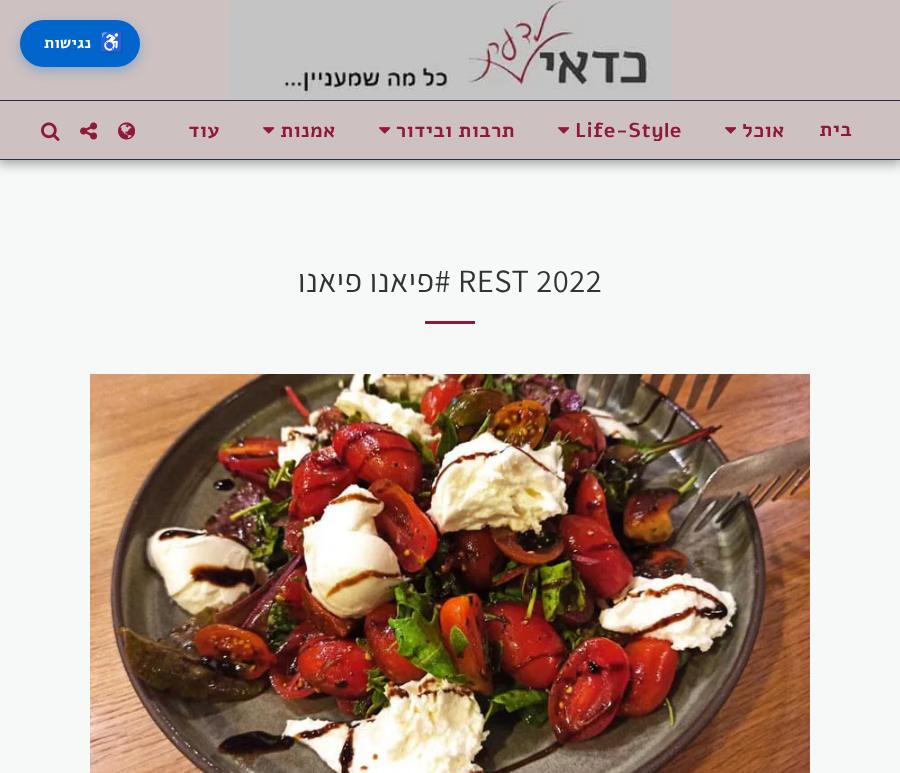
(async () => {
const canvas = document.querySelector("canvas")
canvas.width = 900
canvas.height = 773
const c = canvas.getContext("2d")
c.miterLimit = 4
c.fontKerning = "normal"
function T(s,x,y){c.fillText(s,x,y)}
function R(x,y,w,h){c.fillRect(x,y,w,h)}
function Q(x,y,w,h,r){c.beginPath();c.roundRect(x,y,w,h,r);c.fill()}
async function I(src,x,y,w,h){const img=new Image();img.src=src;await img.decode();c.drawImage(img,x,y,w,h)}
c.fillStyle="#f7f9f8"
R(0,0,900,773)
c.fillStyle="#00000059"
c.filter="blur(6px)"
c.beginPath()
c.rect(-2,0,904,164)
c.fill()
c.filter="none"
c.fillStyle="#cdc1c1"
R(0,0,900,100)
c.fillStyle="#0066cc4d"
c.filter="blur(6px)"
c.beginPath()
c.roundRect(20,24,120,47,23.5)
c.fill()
c.filter="none"
c.fillStyle="#06c"
Q(20,20,120,47,23.5)
c.font="bold 20px Noto Color Emoji"
c.fillStyle="#fff"
T("♿",99,49)
c.direction="rtl"
c.font="bold 16px Alef"
T("נגישות",91,48)
c.fillStyle="#2b2e4a"
R(0,159,900,1)
await I("1.png",228,1,444,99)
c.fillStyle="#cdc1c1"
R(0,101,900,58)
c.fillStyle="#2b2e4a"
R(0,100,900,1)
c.letterSpacing="0.5px"
c.font="bold 20px Alef"
c.fillStyle="#911938"
T("בית",852,136)
T("אוכל",785,137)
await I("2.png",725,127,11,7)
c.direction="ltr"
T("Life-Style",575,137)
await I("2.png",558,127,11,7)
c.direction="rtl"
T("תרבות ובידור",515,137)
await I("2.png",379,127,11,7)
T("אמנות",336,137)
await I("2.png",263,127,11,7)
T("עוד",220,137)
await I("3.png",118,122,17,18)
await I("4.png",80,122,17,18)
await I("5.png",41,122,19,19)
c.direction="ltr"
c.font="32.5px Assistant"
c.fillStyle="#333"
T("REST 2022",458,292)
c.direction="rtl"
T("#פיאנו פיאנו",451,292)
c.fillStyle="#911938"
R(425,321,50,3)
await I("6.png",90,374,720,399)
})()
